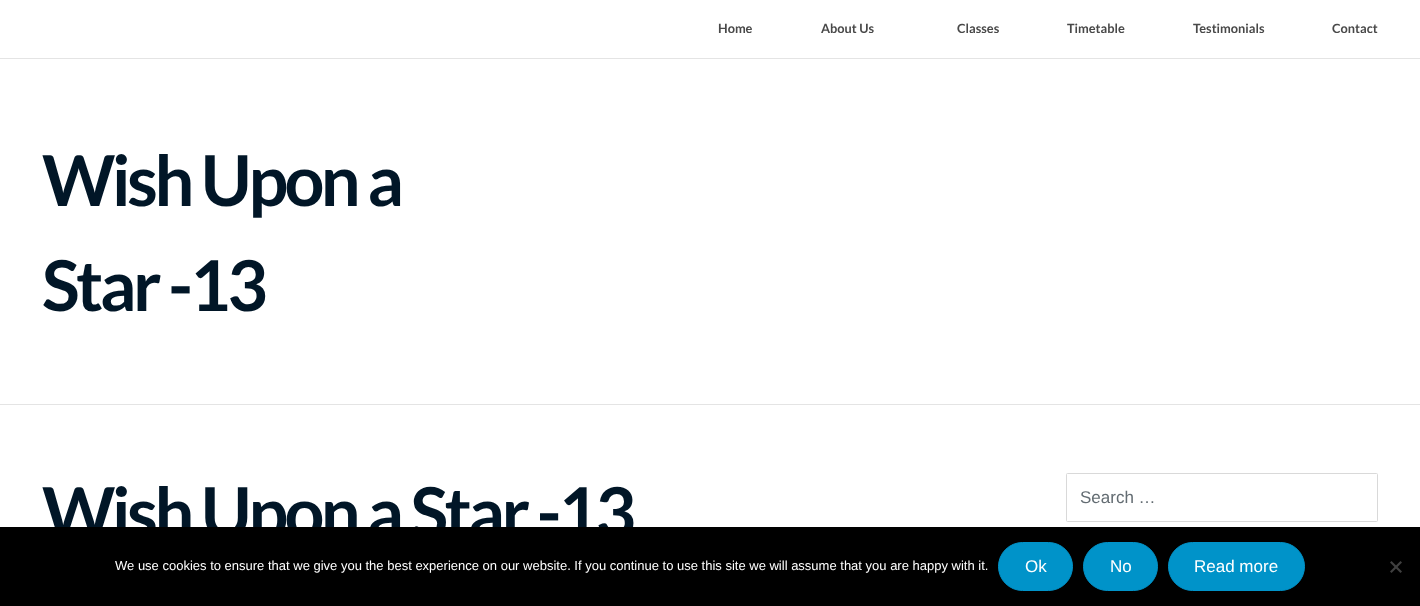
(async () => {
const canvas = document.querySelector("canvas")
canvas.width = 1420
canvas.height = 606
const c = canvas.getContext("2d")
c.miterLimit = 4
c.fontKerning = "normal"
function T(s,x,y){c.fillText(s,x,y)}
function R(x,y,w,h){c.fillRect(x,y,w,h)}
let path
c.fillStyle="#fff"
R(0,0,1420,606)
c.font="bold 12.75px Lato"
c.fillStyle="#494949"
T("Home",718,33)
T("About Us",821,33)
T("Classes",957,33)
T("Timetable",1067,33)
T("Testimonials",1193,33)
T("Contact",1332,33)
c.fillStyle="#e4e4e4"
R(0,58,1420,1)
c.letterSpacing="-3.5px"
c.font="bold 70.1px Lato"
c.fillStyle="#011627"
T("Wish Upon a",42,206)
T("Star -13",42,311)
c.fillStyle="#e4e4e4"
R(0,404,1420,1)
c.fillStyle="#011627"
T("Wish Upon a Star -13",42,538)
c.beginPath()
c.roundRect(1066.5,473.5,311,48,1)
c.strokeStyle="#d9d9d9"
c.stroke()
c.letterSpacing="0px"
c.font="17px Liberation Sans"
c.fillStyle="#636c72"
T("Search …",1080,503)
c.fillStyle="#000"
R(0,527,1420,79)
c.font="13px Liberation Sans"
c.fillStyle="#fff"
T("We use cookies to ensure that we give you the best experience on our website. If you continue to use this site we will assume that you are happy with it.",115,570)
c.fillStyle="#0093c9"
c.beginPath()
c.roundRect(998.5,542.5,74,48,24)
c.fill()
c.strokeStyle="#0093c9"
c.stroke()
c.font="17px Liberation Sans"
c.fillStyle="#fff"
T("Ok",1025,572)
c.fillStyle="#0093c9"
c.beginPath()
c.roundRect(1083.5,542.5,74,48,24)
c.fill()
c.stroke()
c.fillStyle="#fff"
T("No",1110,572)
c.fillStyle="#0093c9"
c.beginPath()
c.roundRect(1168.5,542.5,136,48,24)
c.fill()
c.stroke()
c.fillStyle="#fff"
T("Read more",1194,572)
c.fillStyle="#404040"
path = new Path2D("M1400.5 561l1.5 1.5l-10.5 10.5l-1.5-1.5z")
c.fill(path)
path = new Path2D("M1390 562.5l1.5-1.5l10.5 10.5l-1.5 1.5z")
c.fill(path)
})()
